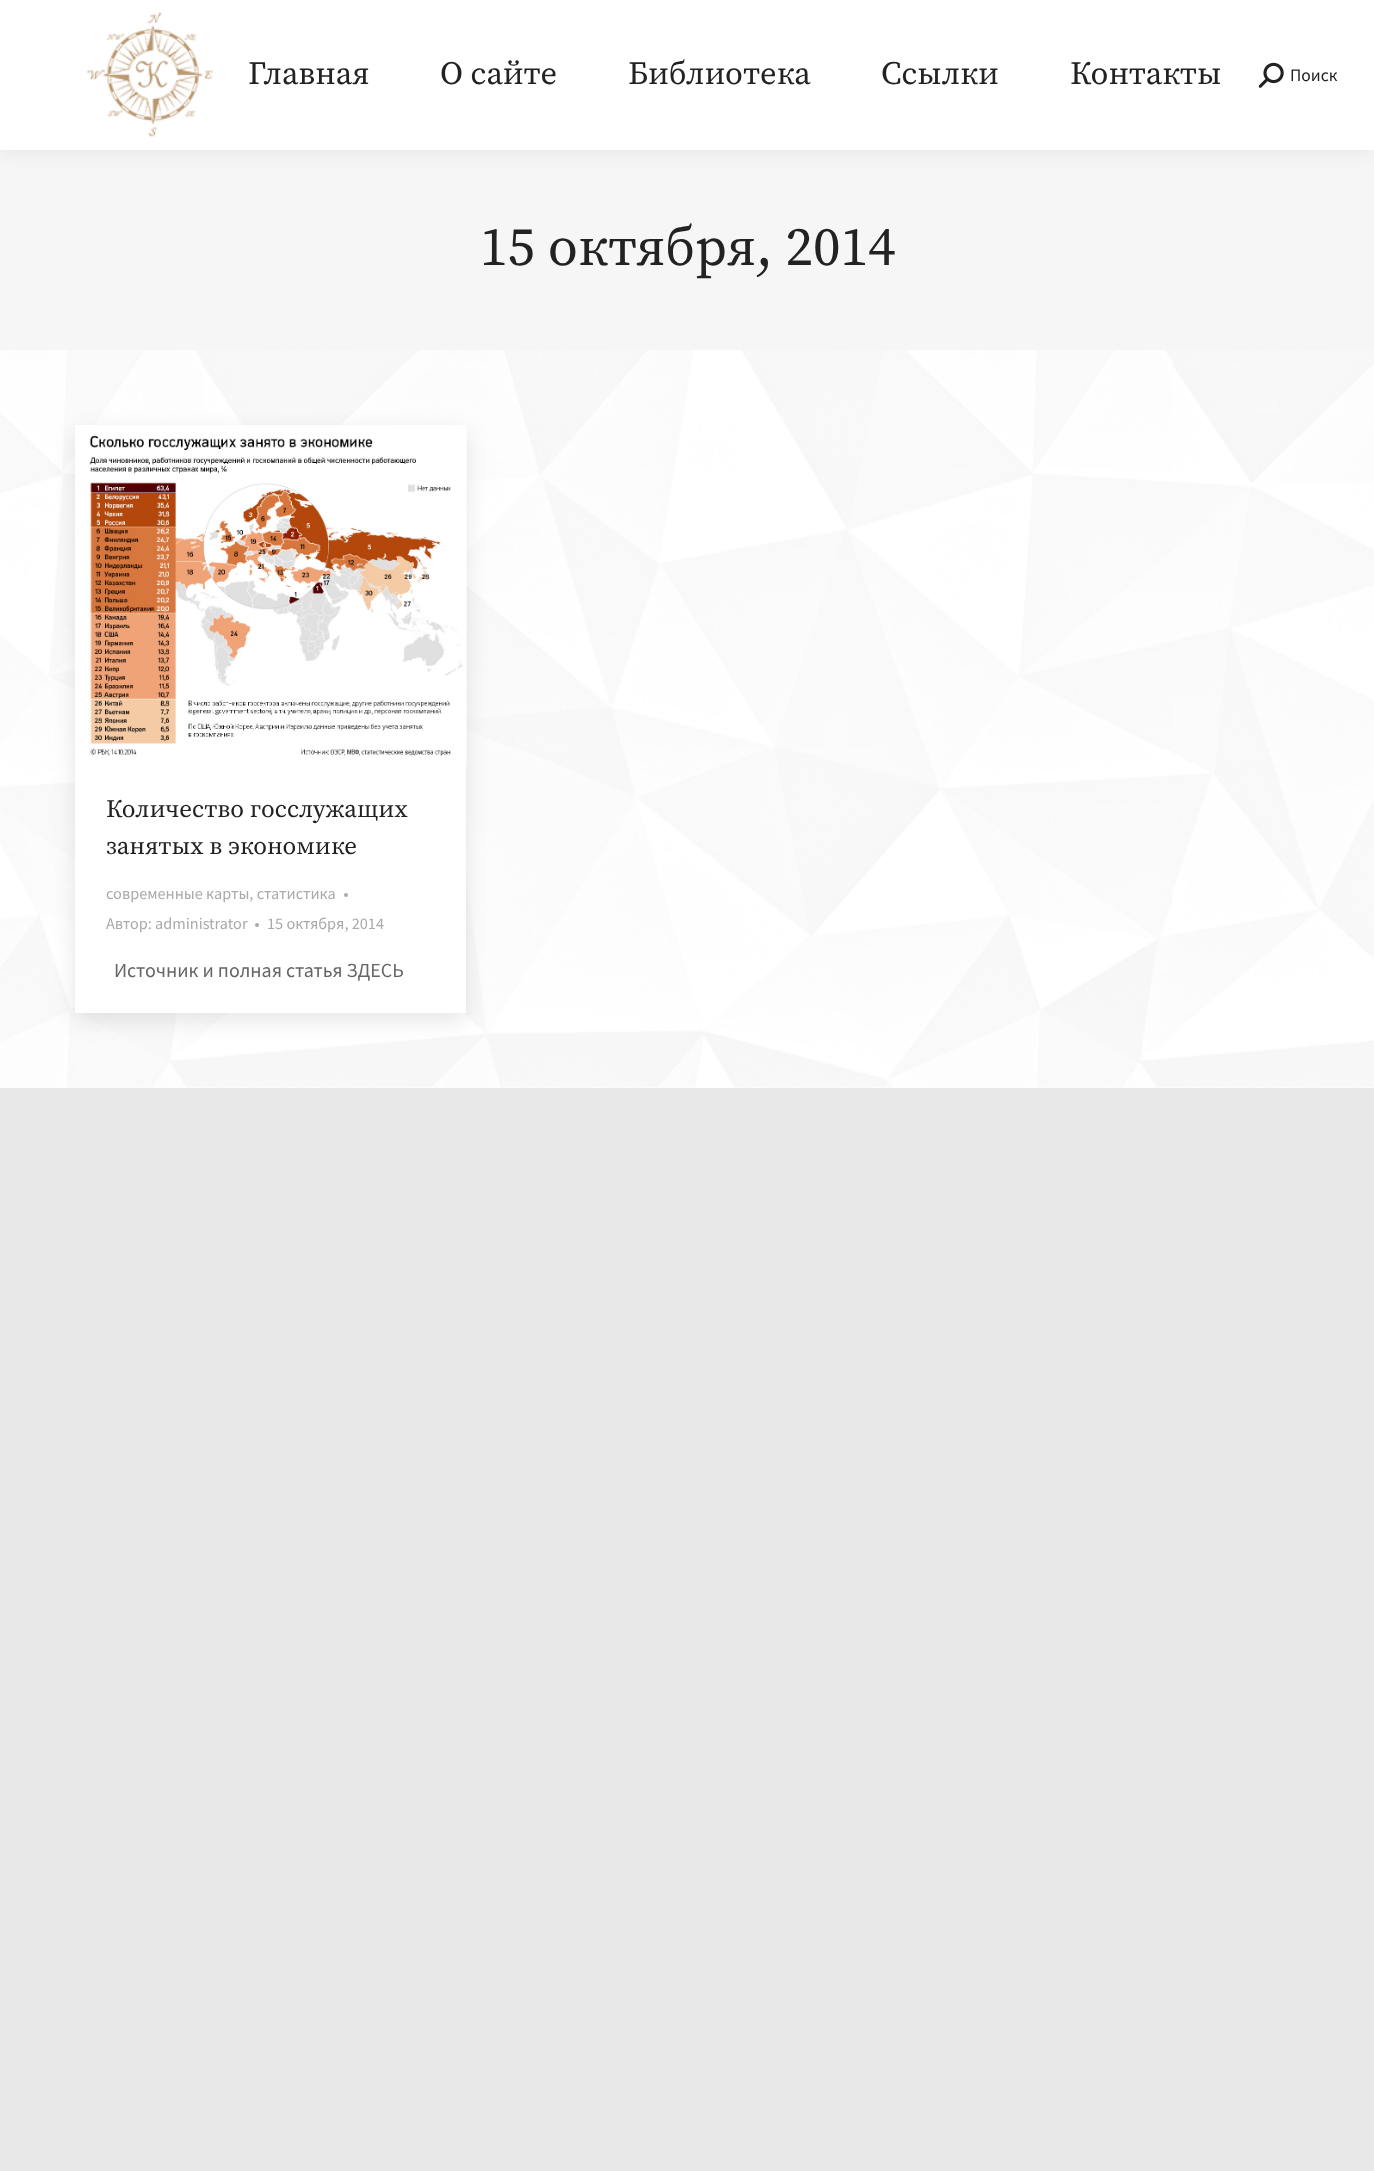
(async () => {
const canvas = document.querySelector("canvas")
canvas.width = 1374
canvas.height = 2171
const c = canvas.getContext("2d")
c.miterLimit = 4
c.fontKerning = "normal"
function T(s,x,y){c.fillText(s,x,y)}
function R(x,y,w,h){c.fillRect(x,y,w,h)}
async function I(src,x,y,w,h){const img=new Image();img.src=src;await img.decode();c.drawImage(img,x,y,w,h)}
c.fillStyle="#e8e8e8"
R(0,0,1374,2171)
c.fillStyle="#fff"
R(0,350,1374,738)
await I("1.png",0,350,1374,738)
c.fillStyle="#f6f6f6"
R(0,150,1374,200)
c.fillStyle="#00000012"
c.filter="blur(9.5px)"
c.beginPath()
c.rect(-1,-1,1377,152)
c.fill()
c.filter="none"
c.fillStyle="#fff"
R(0,0,1374,150)
await I("2.png",87,12,126,125)
c.font="32.5px Source Serif Pro"
c.fillStyle="#222"
T("Главная",248,84)
T("О сайте",440,84)
T("Библиотека",628,84)
T("Ссылки",881,84)
T("Контакты",1070,84)
await I("3.png",1258,62,26,26)
c.font="17.5px Source Sans Pro"
T("Поиск",1290,81)
c.font="55px Source Serif Pro"
T("15 октября, 2014",480,265)
c.fillStyle="#0000001a"
c.filter="blur(11px)"
c.beginPath()
c.rect(75,433,391,587)
c.fill()
c.filter="none"
c.fillStyle="#fff"
R(75,425,391,588)
await I("4.png",89,430,378,336)
c.font="25px Source Serif Pro"
c.fillStyle="#222"
T("Количество госслужащих",106,817)
T("занятых в экономике",106,854)
c.font="16.25px Source Sans Pro"
c.fillStyle="#aaa"
T("современные карты, статистика",106,899)
c.beginPath()
c.arc(346,895,2,0,7)
c.fill()
T("Автор: administrator",106,929)
c.beginPath()
c.arc(257,925,2,0,7)
c.fill()
T("15 октября, 2014",267,929)
c.font="20px Source Sans Pro"
c.fillStyle="#666"
T("Источник и полная статья ЗДЕСЬ",114,977)
})()
